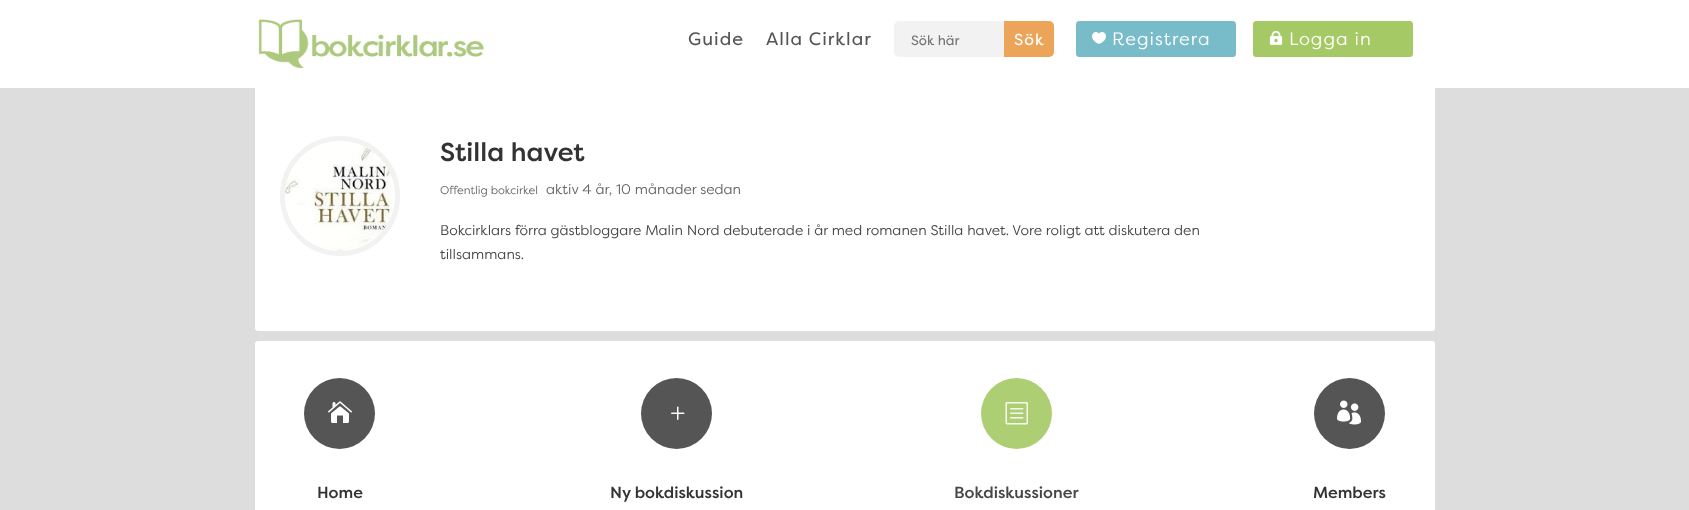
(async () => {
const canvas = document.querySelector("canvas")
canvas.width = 1689
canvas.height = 510
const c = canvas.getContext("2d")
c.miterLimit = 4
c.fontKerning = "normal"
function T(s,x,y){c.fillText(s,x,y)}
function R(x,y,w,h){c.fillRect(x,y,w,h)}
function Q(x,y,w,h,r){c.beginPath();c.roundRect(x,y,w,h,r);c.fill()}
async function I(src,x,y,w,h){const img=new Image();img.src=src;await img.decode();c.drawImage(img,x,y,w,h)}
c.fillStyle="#ddd"
R(0,0,1689,510)
c.fillStyle="#fff"
Q(255,86,1180,245,3)
R(0,0,1689,88)
await I("1.png",258,19,226,50)
c.letterSpacing="1px"
c.font="18px 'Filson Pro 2'"
c.fillStyle="#555"
T("Guide",688,45)
T("Alla Cirklar",766,45)
c.fillStyle="#f2f2f2"
c.beginPath()
c.roundRect(894.5,21.5,119,35,4.5)
c.fill()
c.strokeStyle="#f2f2f2"
c.stroke()
c.letterSpacing="0px"
c.font="13.5px 'Filson Pro 2'"
c.fillStyle="#757575"
T("Sök här",911,45)
c.fillStyle="#eca459"
c.beginPath()
c.roundRect(1004,21,50,36,[0,5,5,0])
c.fill()
c.letterSpacing="1px"
c.font="16px 'Filson Pro 2'"
c.fillStyle="#fff"
T("Sök",1014,45)
c.fillStyle="#79bcc9"
c.beginPath()
c.roundRect(1076.5,21.5,159,35,2.5)
c.fill()
c.strokeStyle="#79bcc9"
c.stroke()
await I("2.png",1092,32,14,12)
c.font="18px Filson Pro"
c.fillStyle="#fff"
T("Registrera",1112,45)
c.fillStyle="#a5c965"
c.beginPath()
c.roundRect(1253.5,21.5,159,35,2.5)
c.fill()
c.strokeStyle="#a5c965"
c.stroke()
await I("3.png",1269,30,14,15)
c.fillStyle="#fff"
T("Logga in",1289,45)
c.beginPath()
c.arc(340,196,57.5,0,7)
c.strokeStyle="#f2f2f2"
c.lineWidth=5
c.stroke()
await I("4.png",285,143,108,108)
c.letterSpacing="0px"
c.font="500 26px Filson Pro"
c.fillStyle="#333"
T("Stilla havet",440,161)
c.font="11.25px Filson Pro"
c.fillStyle="#666"
T("Offentlig bokcirkel",440,194)
c.font="14px Filson Pro"
T("aktiv 4 år, 10 månader sedan",546,194)
c.fillStyle="#474747"
T("Bokcirklars förra gästbloggare Malin Nord debuterade i år med romanen Stilla havet. Vore roligt att diskutera den",440,235)
T("tillsammans.",440,259)
c.fillStyle="#fff"
Q(255,341,1180,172,3)
c.fillStyle="#555"
c.beginPath()
c.arc(339.5,413.5,35.5,0,7)
c.fill()
await I("5.png",328,401,24,22)
c.font="500 16px Filson Pro"
c.fillStyle="#333"
T("Home",317,498)
c.fillStyle="#555"
c.beginPath()
c.arc(676.5,413.5,35.5,0,7)
c.fill()
await I("6.png",671,406,14,14)
c.fillStyle="#333"
T("Ny bokdiskussion",610,498)
c.fillStyle="#aece74"
c.beginPath()
c.arc(1016.5,413.5,35.5,0,7)
c.fill()
await I("7.png",1005,402,23,23)
c.fillStyle="#474747"
T("Bokdiskussioner",954,498)
c.fillStyle="#555"
c.beginPath()
c.arc(1349.5,413.5,35.5,0,7)
c.fill()
await I("8.png",1337,400,24,25)
c.fillStyle="#333"
T("Members",1313,498)
})()
